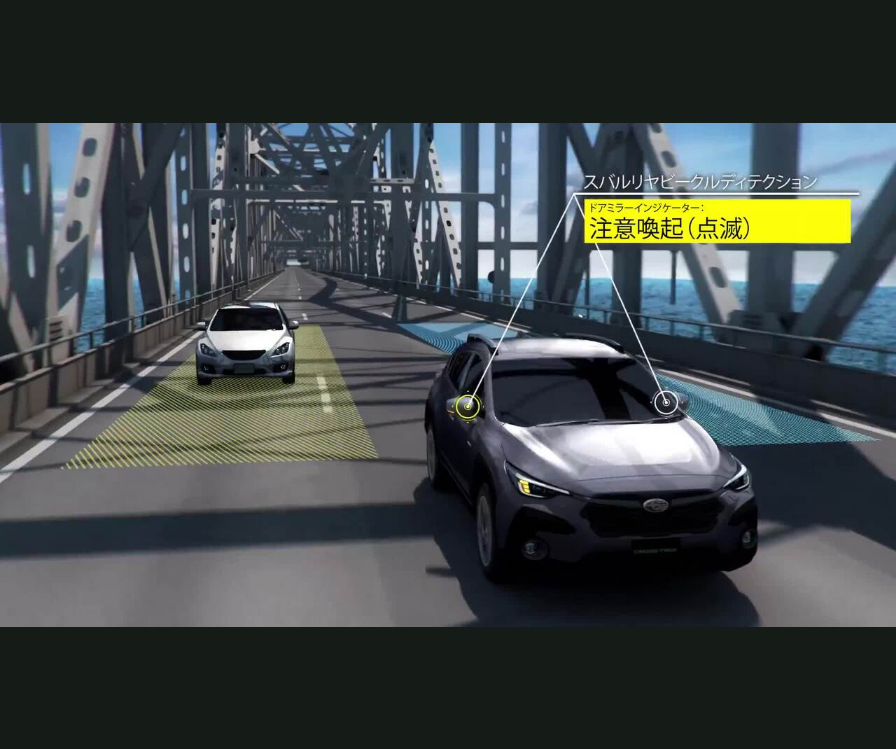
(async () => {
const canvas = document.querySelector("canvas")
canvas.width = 896
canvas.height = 749
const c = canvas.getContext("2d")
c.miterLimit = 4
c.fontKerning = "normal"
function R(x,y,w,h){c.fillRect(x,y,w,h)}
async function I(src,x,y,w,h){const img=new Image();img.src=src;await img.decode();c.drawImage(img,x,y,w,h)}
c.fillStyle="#151b17"
R(0,0,896,749)
await I("1.png",0,123,896,504)
})()
